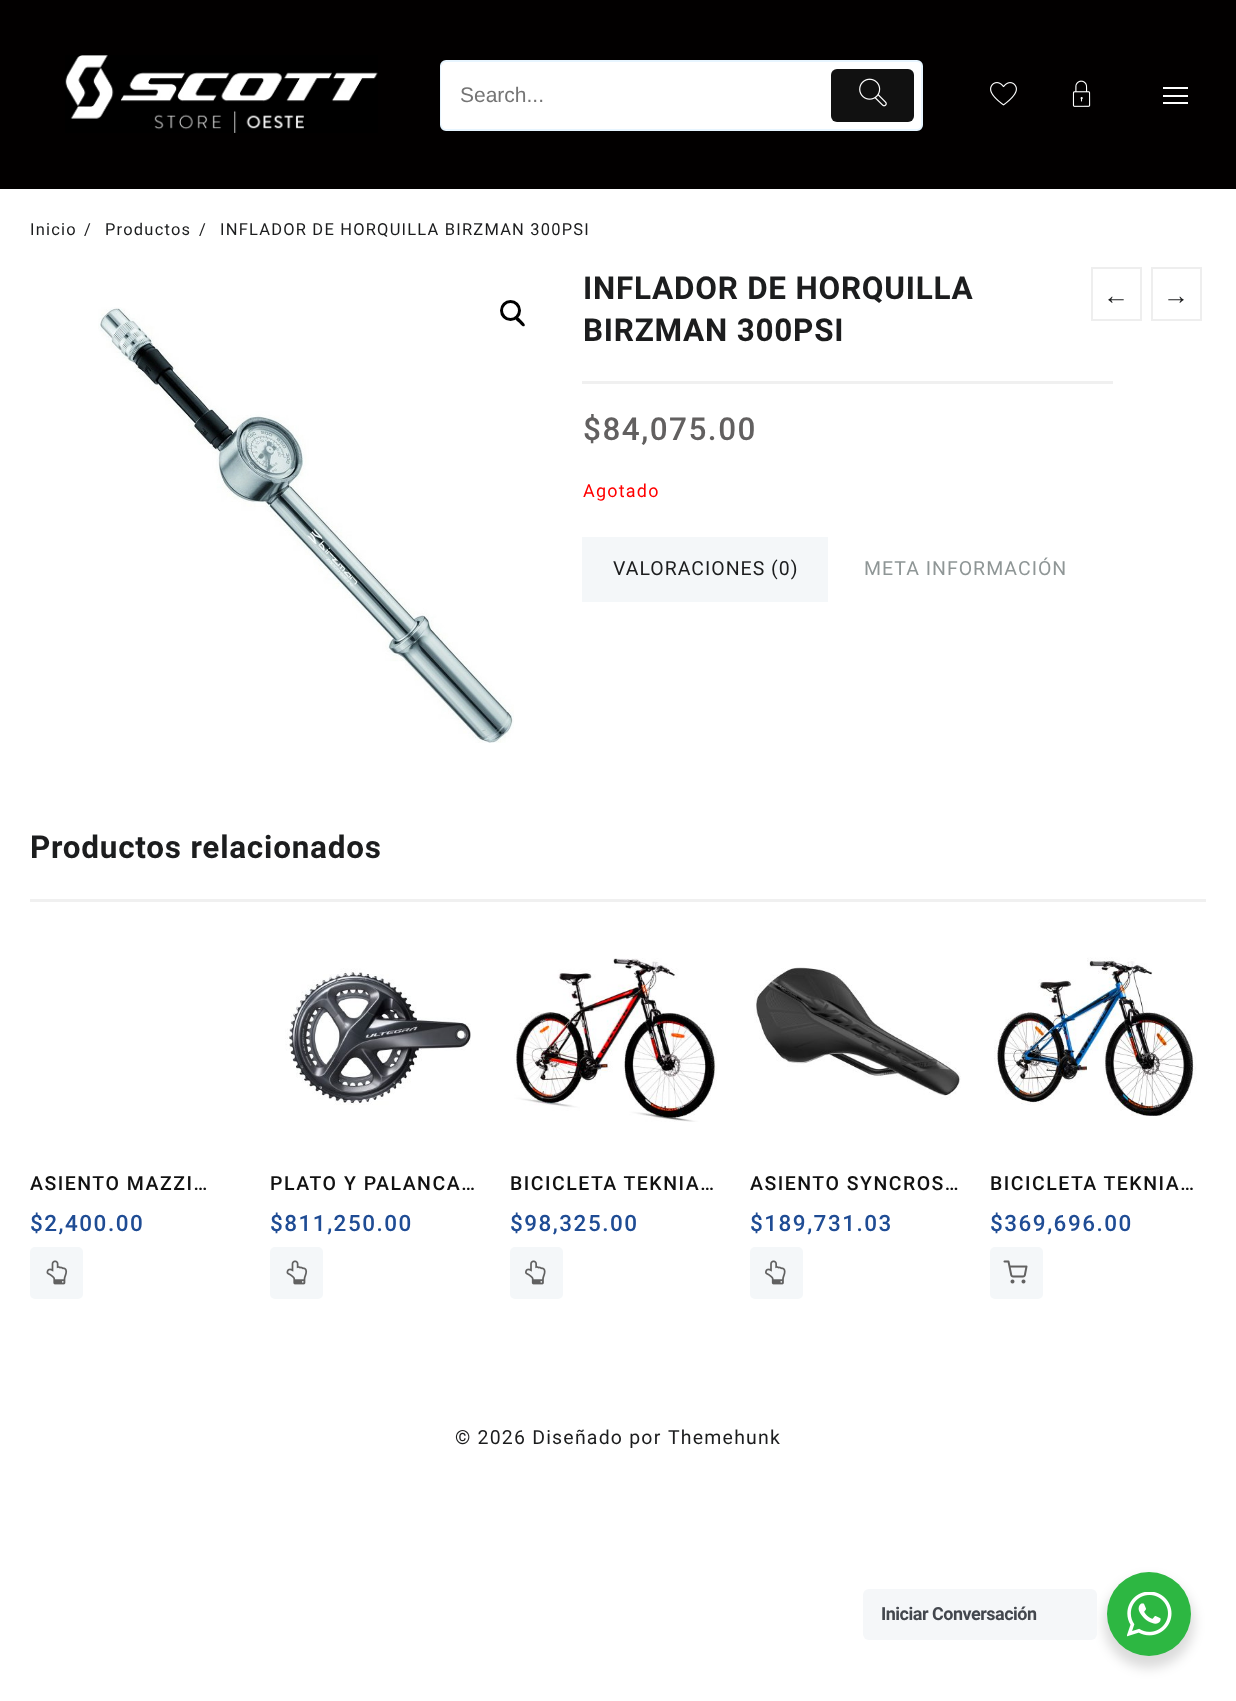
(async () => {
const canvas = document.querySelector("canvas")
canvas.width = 1236
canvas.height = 1701
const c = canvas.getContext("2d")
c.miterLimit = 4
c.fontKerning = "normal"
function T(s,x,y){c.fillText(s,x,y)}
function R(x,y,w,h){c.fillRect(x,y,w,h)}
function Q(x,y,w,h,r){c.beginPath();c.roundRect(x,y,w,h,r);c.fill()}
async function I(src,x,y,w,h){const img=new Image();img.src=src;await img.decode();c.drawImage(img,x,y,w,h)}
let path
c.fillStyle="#fff"
R(0,0,1236,1701)
c.fillStyle="#020000"
R(0,0,1236,189)
await I("1.png",65,55,313,78)
c.fillStyle="#fff"
c.beginPath()
c.roundRect(441,61,481,69,5)
c.fill()
c.strokeStyle="#e7f5ff"
c.lineWidth=2
c.stroke()
Q(441,62,383,67,6)
c.font="21px Liberation Sans"
c.fillStyle="#757575"
T("Search...",460,102)
c.fillStyle="#111"
Q(831,69,83,53,6)
await I("2.png",859,78,28,29)
await I("3.png",990,82,27,24)
await I("4.png",1072,80,19,27)
c.fillStyle="#fff"
R(1163,87,25,2)
R(1163,95,25,2)
R(1163,102,25,2)
c.letterSpacing="1.2px"
c.font="16.5px Roboto"
c.fillStyle="#1c1d1e"
T("Inicio",30,235)
T("/",84,235)
T("Productos",105,235)
T("/",199,235)
T("INFLADOR DE HORQUILLA BIRZMAN 300PSI",220,235)
await I("5.png",98,307,416,436)
c.beginPath()
c.arc(510.5,310.5,9,0,7)
c.strokeStyle="#000"
c.lineWidth=3
c.stroke()
c.fillStyle="#000"
path = new Path2D("M516 317.5c1.5-2 4.5 2 5.5 3c.5 1 4.5 3.5 3 5.5c-2 1.5-4.5-2.5-5.5-3.5c-1-.5-5-3.5-3-5z")
c.fill(path)
c.fillStyle="#f0f0f0"
R(582,381,531,3)
c.letterSpacing="0.75px"
c.font="bold 31.5px Roboto"
c.fillStyle="#1c1d1e"
T("INFLADOR DE HORQUILLA",583,299)
T("BIRZMAN 300PSI",583,341)
c.strokeStyle="#eee"
c.lineWidth=2
c.strokeRect(1092,268,49,52)
c.letterSpacing="1.2px"
c.font="26px Liberation Sans"
T("←",1103,304)
c.strokeRect(1152,268,49,52)
T("→",1163,304)
c.letterSpacing="1.5px"
c.font="500 31.5px Roboto"
c.fillStyle="#626060"
T("$84,075.00",583,440)
c.letterSpacing="1.2px"
c.font="18px Roboto"
c.fillStyle="#f00"
T("Agotado",583,497)
c.fillStyle="#f4f7f9"
R(582,537,246,65)
c.letterSpacing="1px"
c.font="19.5px Roboto"
c.fillStyle="#1c1d1e"
T("VALORACIONES (0)",613,575)
c.fillStyle="#8f9696"
T("META INFORMACIÓN",864,575)
c.fillStyle="#f0f0f0"
R(30,899,1176,3)
c.letterSpacing="0.75px"
c.font="bold 31.5px Roboto"
c.fillStyle="#1c1d1e"
T("Productos relacionados",30,858)
c.letterSpacing="1.5px"
c.font="500 19.5px Roboto"
c.fillStyle="#111"
T("ASIENTO MAZZI…",30,1190)
c.font="500 22.5px Roboto"
c.fillStyle="#1f4c94"
T("$2,400.00",30,1231)
c.fillStyle="#f4f7f9"
Q(30,1247,53,52,5)
await I("6.png",46,1260,22,25)
await I("7.png",285,968,186,137)
c.font="500 19.5px Roboto"
c.fillStyle="#111"
T("PLATO Y PALANCA…",270,1190)
c.font="500 22.5px Roboto"
c.fillStyle="#1f4c94"
T("$811,250.00",270,1231)
c.fillStyle="#f4f7f9"
Q(270,1247,53,52,5)
await I("6.png",286,1260,22,25)
await I("8.png",514,958,203,164)
c.font="500 19.5px Roboto"
c.fillStyle="#111"
T("BICICLETA TEKNIA…",510,1190)
c.font="500 22.5px Roboto"
c.fillStyle="#1f4c94"
T("$98,325.00",510,1231)
c.fillStyle="#f4f7f9"
Q(510,1247,53,52,5)
await I("9.png",525,1260,21,25)
await I("10.png",754,967,207,133)
c.font="500 19.5px Roboto"
c.fillStyle="#111"
T("ASIENTO SYNCROS…",750,1190)
c.font="500 22.5px Roboto"
c.fillStyle="#1f4c94"
T("$189,731.03",750,1231)
c.fillStyle="#f4f7f9"
Q(750,1247,53,52,5)
await I("9.png",765,1260,21,25)
await I("11.png",994,957,203,159)
c.font="500 19.5px Roboto"
c.fillStyle="#111"
T("BICICLETA TEKNIA…",990,1190)
c.font="500 22.5px Roboto"
c.fillStyle="#1f4c94"
T("$369,696.00",990,1231)
c.fillStyle="#f4f7f9"
Q(990,1247,53,52,5)
await I("12.png",1003,1260,25,24)
c.letterSpacing="1.2px"
c.font="19.5px Roboto"
c.fillStyle="#1c1d1e"
T("© 2026 Diseñado por",455,1444)
T("Themehunk",668,1444)
c.fillStyle="#00000024"
c.filter="blur(6px)"
c.beginPath()
c.roundRect(1104,1578,90,90,45)
c.fill()
c.filter="none"
c.fillStyle="#f5f7f9"
Q(863,1589,234,51,6)
c.letterSpacing="-0.5px"
c.font="bold 18px Roboto"
c.fillStyle="#43474e"
T("Iniciar Conversación",881,1620)
c.fillStyle="#2db742"
c.beginPath()
c.arc(1149,1614,42,0,7)
c.fill()
await I("13.png",1127,1592,45,45)
})()
